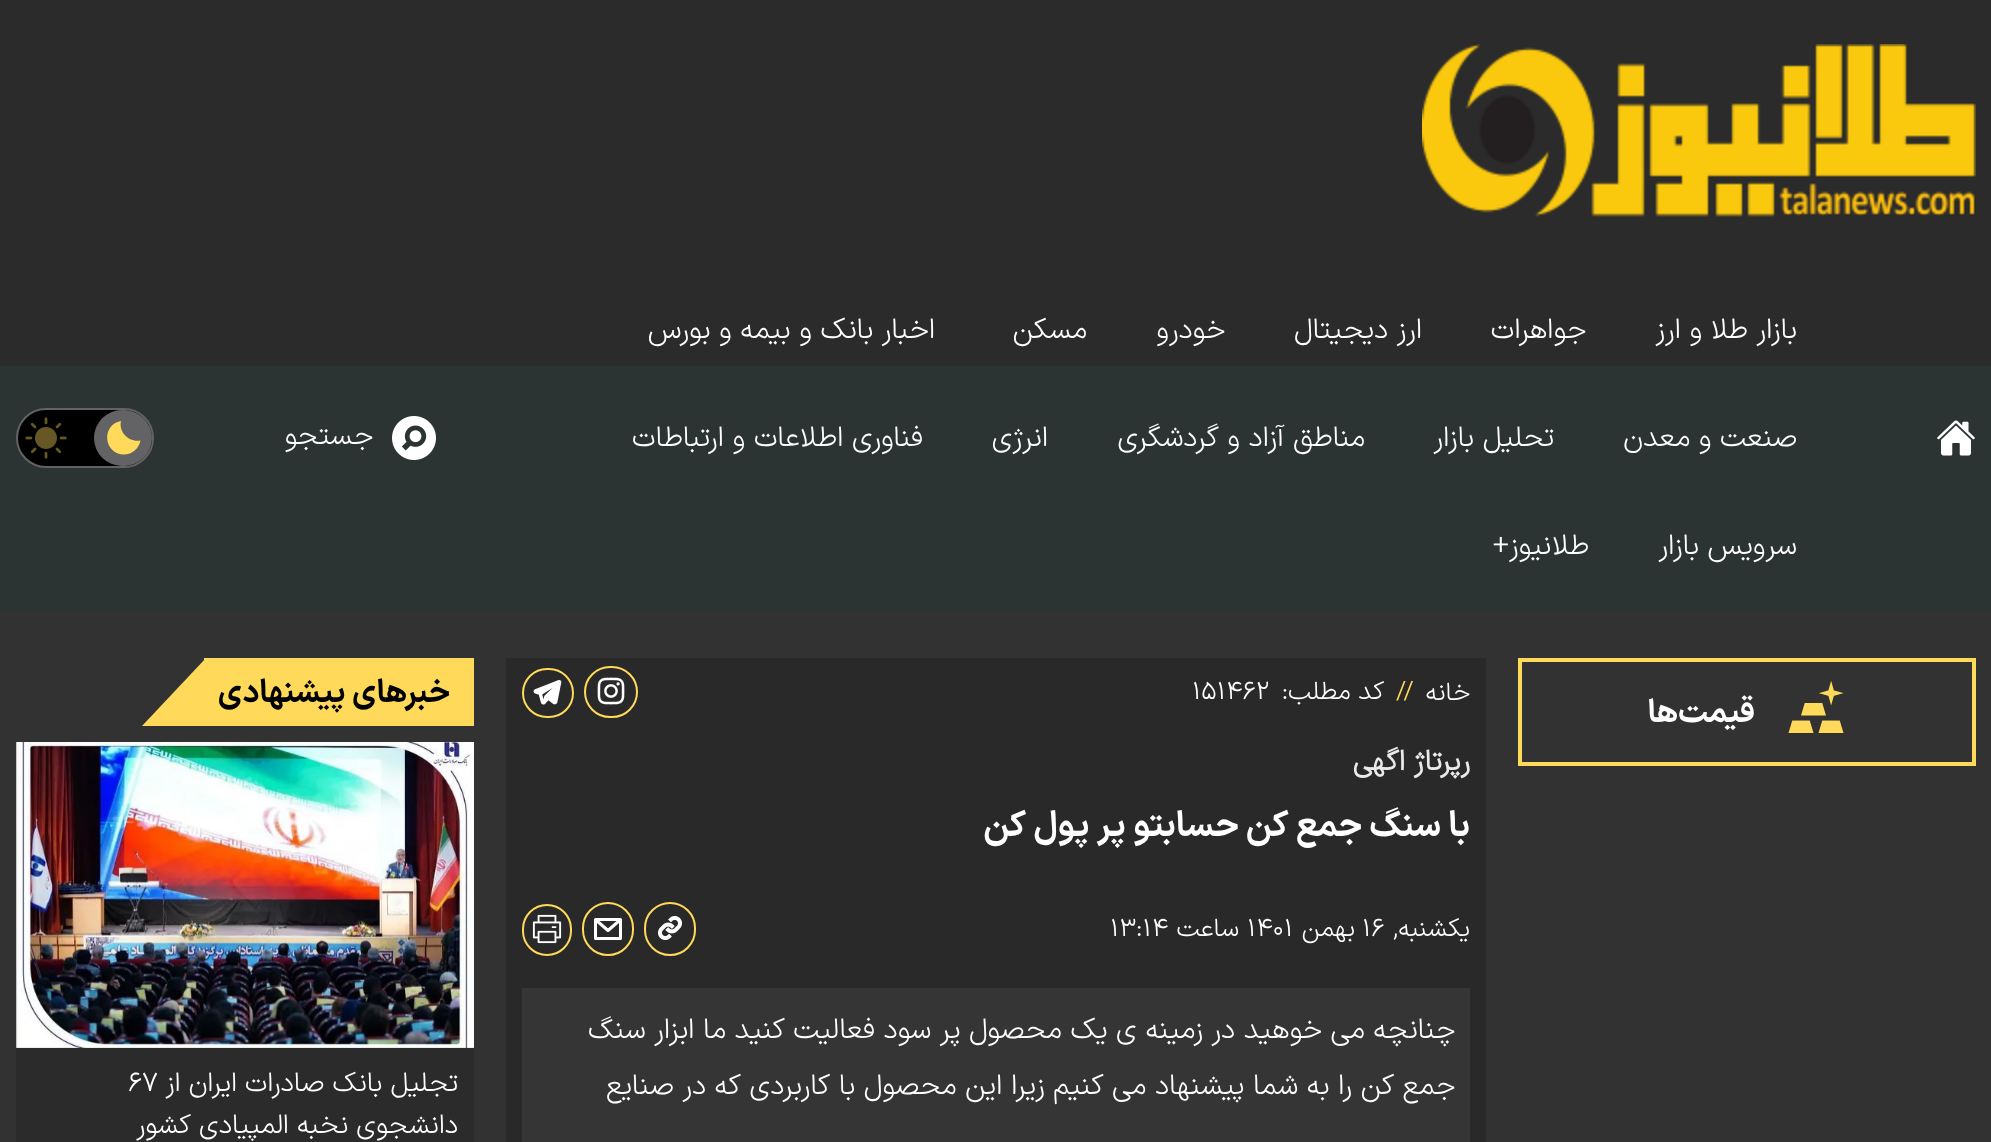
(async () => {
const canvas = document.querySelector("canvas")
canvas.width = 1991
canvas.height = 1142
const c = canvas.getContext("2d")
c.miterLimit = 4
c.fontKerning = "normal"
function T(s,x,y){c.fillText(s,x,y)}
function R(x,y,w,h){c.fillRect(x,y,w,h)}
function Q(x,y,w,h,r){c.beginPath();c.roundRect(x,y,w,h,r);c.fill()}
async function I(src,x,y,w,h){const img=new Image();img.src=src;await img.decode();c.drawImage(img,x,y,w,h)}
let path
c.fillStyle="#323232"
R(0,0,1991,1142)
c.fillStyle="#2c3333"
R(0,366,1991,244)
c.fillStyle="#2b2b2b"
R(0,0,1991,366)
await I("1.png",1422,44,554,173)
await I("2.png",1937,420,38,36)
c.direction="rtl"
c.font="300 28.8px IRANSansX"
c.fillStyle="#fff"
T("بازار طلا و ارز",1797,338)
T("جواهرات",1586,338)
T("ارز دیجیتال",1422,338)
T("خودرو",1225,338)
T("مسکن",1087,338)
T("اخبار بانک و بیمه و بورس",935,338)
T("صنعت و معدن",1797,446)
T("تحلیل بازار",1554,446)
T("مناطق آزاد و گردشگری",1365,446)
T("انرژی",1048,446)
T("فناوری اطلاعات و ارتباطات",923,446)
T("سرویس بازار",1797,554)
T("طلانیوز+",1589,554)
await I("3.png",392,416,44,44)
T("جستجو",373,444)
c.fillStyle="#000"
c.beginPath()
c.roundRect(17,409,136,58,29)
c.fill()
c.strokeStyle="#636366"
c.lineWidth=2
c.stroke()
c.fillStyle="#636366"
Q(94,410,58,56,28)
c.fillStyle="#ffd95a"
path = new Path2D("M124 454.5c-20 0-23.5-29.5-3-33.5c-2.5 11.5 8 21.5 19.5 19.5c-1.5 8-8.5 14-16.5 14z")
c.fill(path)
await I("4.png",25,417,42,42)
c.strokeStyle="#ffd95a"
c.lineWidth=4
c.strokeRect(1520,660,454,104)
await I("5.png",1788,681,56,52)
c.font="bold 32px 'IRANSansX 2'"
c.fillStyle="#fff"
T("قیمت‌ها",1755,722)
c.fillStyle="#292929"
R(506,658,980,228)
c.font="300 25.5px IRANSansX"
c.fillStyle="#fff"
T("خانه",1470,700)
c.direction="ltr"
c.fillStyle="#ffd95a"
T("//",1396,699)
c.direction="rtl"
c.fillStyle="#fff"
T("کد مطلب:",1384,699)
c.direction="ltr"
T("۱۵۱۴۶۲",1192,699)
c.beginPath()
c.roundRect(585,667,52,50,25)
c.lineWidth=2
c.stroke()
await I("6.png",597,677,28,28)
c.beginPath()
c.roundRect(523,669,50,48,24)
c.stroke()
await I("7.png",533,680,29,25)
c.direction="rtl"
c.font="bold 28.8px IRANSansX"
c.fillStyle="#eaeaea"
T("رپرتاژ اگهی",1470,770)
c.font="bold 35.25px 'IRANSansX 2'"
c.fillStyle="#fff"
T("با سنگ جمع کن حسابتو پر پول کن",1470,836)
c.fillStyle="#292929"
R(506,886,980,256)
c.font="300 25.5px IRANSansX"
c.fillStyle="#fff"
T("یکشنبه,",1470,936)
c.direction="ltr"
T("۱۶",1362,936)
c.direction="rtl"
T("بهمن",1355,936)
c.direction="ltr"
T("۱۴۰۱",1247,936)
c.direction="rtl"
T("ساعت",1239,936)
c.direction="ltr"
T("۱۳:۱۴",1110,936)
c.beginPath()
c.roundRect(645,903,50,52,25)
c.stroke()
await I("8.png",658,916,24,24)
c.beginPath()
c.roundRect(583,903,50,52,25)
c.stroke()
path = new Path2D("M595.5 919.5h25v19h-25zm1 1l11.5 10l11.5-10")
c.strokeStyle="#fff"
c.lineWidth=3
c.lineCap="round"
c.lineJoin="round"
c.stroke(path)
c.beginPath()
c.roundRect(523,905,48,50,24)
c.strokeStyle="#ffd95a"
c.lineWidth=2
c.lineJoin="miter"
c.stroke()
await I("9.png",532,914,30,30)
c.fillStyle="#353535"
R(522,988,948,154)
c.direction="rtl"
c.font="300 28.8px IRANSansX"
c.fillStyle="#fff"
T("چنانچه می خوهید در زمینه ی یک محصول پر سود فعالیت کنید ما ابزار سنگ",1455,1038)
T("جمع کن را به شما پیشنهاد می کنیم زیرا این محصول با کاربردی که در صنایع",1455,1094)
c.fillStyle="#ffd95a"
R(204,658,270,68)
c.font="bold 32px 'IRANSansX 2'"
c.fillStyle="#000"
T("خبرهای پیشنهادی",450,702)
c.fillStyle="#ffd95a"
path = new Path2D("M206 726h-64l64-68z")
c.fill(path)
await I("10.png",16,742,458,306)
c.fillStyle="#2b2b2b"
R(16,1048,458,94)
c.font="300 27.25px IRANSansX"
c.fillStyle="#fff"
T("تجلیل بانک صادرات ایران از",458,1091)
c.direction="ltr"
T("۶۷",128,1091)
c.direction="rtl"
T("دانشجوی نخبه المپیادی کشور",458,1133)
})()
